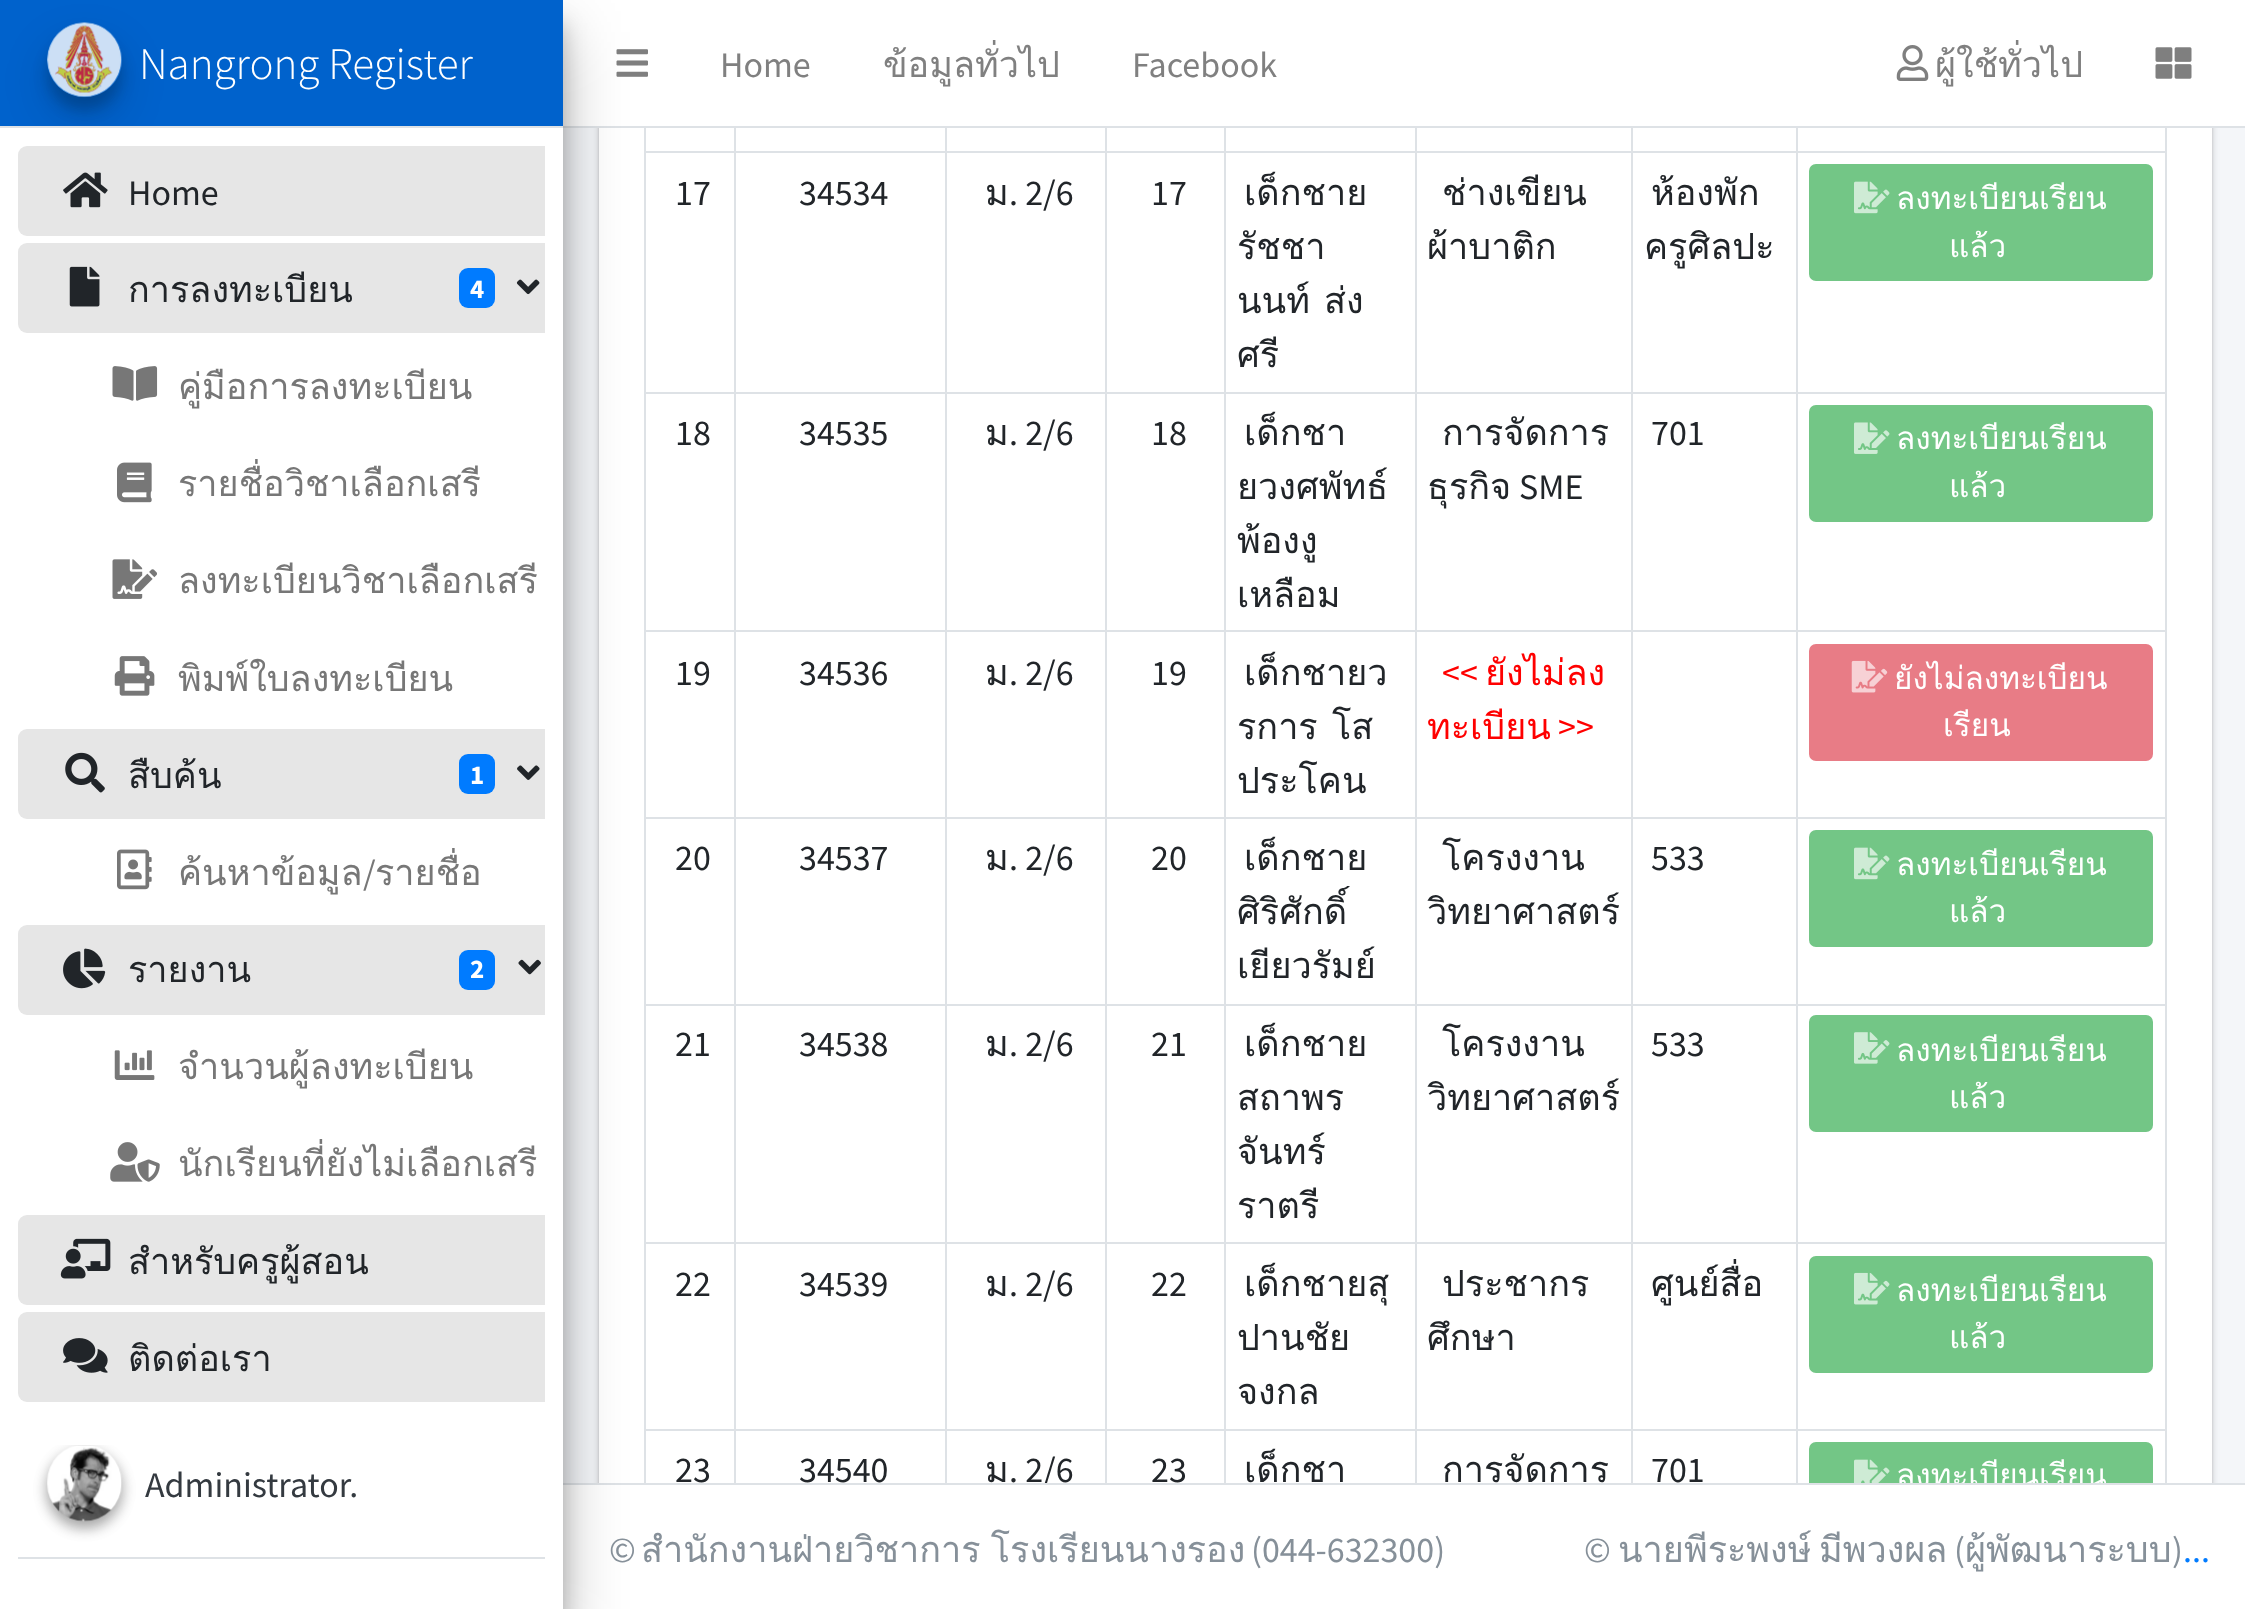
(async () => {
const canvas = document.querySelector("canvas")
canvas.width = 2245
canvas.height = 1609
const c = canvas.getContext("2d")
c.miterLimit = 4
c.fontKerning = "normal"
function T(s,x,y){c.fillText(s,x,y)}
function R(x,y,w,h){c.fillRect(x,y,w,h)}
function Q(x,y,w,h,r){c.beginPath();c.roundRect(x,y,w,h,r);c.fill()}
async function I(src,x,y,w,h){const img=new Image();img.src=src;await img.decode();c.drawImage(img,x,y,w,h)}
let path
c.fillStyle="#f4f6f9"
R(0,0,2245,1609)
c.fillStyle="#00000033"
c.filter="blur(3.5px)"
c.beginPath()
c.roundRect(599,-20,1613,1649,9)
c.fill()
c.filter="none"
c.fillStyle="#0000001f"
c.filter="blur(1px)"
c.beginPath()
c.roundRect(599,-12,1613,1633,9)
c.fill()
c.filter="none"
c.fillStyle="#fff"
R(563,0,1682,126)
c.fillStyle="#dee2e6"
R(563,126,1682,2)
c.fillStyle="#fff"
R(599,128,1613,1355)
c.font="36px Source Sans Pro"
c.fillStyle="#212529"
T(". 2/6",1009,1482)
c.fillStyle="#73c686"
c.beginPath()
c.roundRect(1810,1443,342,115,6)
c.fill()
c.strokeStyle="#73c686"
c.lineWidth=2
c.stroke()
c.fillStyle="#fff"
R(563,1485,1682,124)
c.font="31.5px Loma"
T("ลงทะเบียนเรียน",1896,1486)
c.fillStyle="#dee2e6"
R(563,1483,1682,2)
c.fillStyle="#00000038"
c.filter="blur(11px)"
c.beginPath()
c.rect(0,23,563,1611)
c.fill()
c.filter="none"
await I("19.png",616,49,32,28)
c.fillStyle="#dee2e6"
R(644,128,2,1355)
R(2165,128,2,1355)
R(1796,151,371,2)
R(1796,392,371,2)
R(1796,630,371,2)
R(1796,817,371,2)
R(1796,1004,371,2)
R(1796,1242,371,2)
R(1796,1429,371,2)
R(1796,1429,2,54)
R(1631,1429,167,2)
R(1796,1242,2,189)
R(1631,1242,167,2)
R(1796,1004,2,240)
R(1631,1004,167,2)
R(1796,817,2,189)
R(1631,817,167,2)
R(1796,630,2,189)
R(1631,630,167,2)
R(1796,392,2,240)
R(1631,392,167,2)
R(1796,151,2,243)
R(1631,151,167,2)
R(1631,1429,2,54)
R(1415,1429,219,2)
R(1631,1242,2,189)
R(1415,1242,219,2)
R(1631,1004,2,240)
R(1415,1004,219,2)
R(1631,817,2,189)
R(1415,817,219,2)
R(1631,630,2,189)
R(1415,630,219,2)
R(1631,392,2,240)
R(1415,392,219,2)
R(1631,151,2,243)
R(1415,151,219,2)
R(1415,1429,2,54)
R(1224,1429,194,2)
R(1415,1242,2,189)
R(1224,1242,194,2)
R(1415,1004,2,240)
R(1224,1004,194,2)
R(1415,817,2,189)
R(1224,817,194,2)
R(1415,630,2,189)
R(1224,630,194,2)
R(1415,392,2,240)
R(1224,392,194,2)
R(1415,151,2,243)
R(1224,151,194,2)
R(1224,1429,2,54)
R(1105,1429,121,2)
R(1224,1242,2,189)
R(1105,1242,121,2)
R(1224,1004,2,240)
R(1105,1004,121,2)
R(1224,817,2,189)
R(1105,817,121,2)
R(1224,630,2,189)
R(1105,630,121,2)
R(1224,392,2,240)
R(1105,392,121,2)
R(1224,151,2,243)
R(1105,151,121,2)
R(1105,1429,2,54)
R(945,1429,162,2)
R(1105,1242,2,189)
R(945,1242,162,2)
R(1105,1004,2,240)
R(945,1004,162,2)
R(1105,817,2,189)
R(945,817,162,2)
R(1105,630,2,189)
R(945,630,162,2)
R(1105,392,2,240)
R(945,392,162,2)
R(1105,151,2,243)
R(945,151,162,2)
R(945,1429,2,54)
R(734,1429,213,2)
R(945,1242,2,189)
R(734,1242,213,2)
R(945,1004,2,240)
R(734,1004,213,2)
R(945,817,2,189)
R(734,817,213,2)
R(945,630,2,189)
R(734,630,213,2)
R(945,392,2,240)
R(734,392,213,2)
R(945,151,2,243)
R(734,151,213,2)
R(734,1429,2,54)
R(644,1429,92,2)
R(734,1242,2,189)
R(644,1242,92,2)
R(734,1004,2,240)
R(644,1004,92,2)
R(734,817,2,189)
R(644,817,92,2)
R(734,630,2,189)
R(644,630,92,2)
R(734,392,2,240)
R(644,392,92,2)
R(734,151,2,243)
R(644,151,92,2)
c.fillStyle="#00000040"
c.filter="blur(31.5px)"
c.beginPath()
c.rect(0,32,563,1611)
c.fill()
c.filter="none"
c.fillStyle="#fff"
R(0,128,563,1481)
c.fillStyle="#0062cc"
R(0,0,563,126)
c.fillStyle="#dee2e6"
R(0,126,563,2)
c.save()
path = new Path2D("M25 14h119v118h-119zm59 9h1c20.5 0 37 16.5 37 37c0 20.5-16.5 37-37 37h-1c-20.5 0-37-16.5-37-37c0-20.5 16.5-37 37-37z")
c.clip(path,"evenodd")
c.fillStyle="#0014293b"
c.filter="blur(7px)"
c.beginPath()
c.roundRect(47,36,75,74,37)
c.fill()
c.filter="none"
c.restore()
c.fillStyle="#e6e6e6"
c.beginPath()
c.roundRect(18,146,527,90,[9,0,0,9])
c.fill()
await I("2.png",63,172,45,36)
c.save()
c.beginPath()
c.rect(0,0,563,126)
c.clip()
path = new Path2D("M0 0h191v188h-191zm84 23h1c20.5 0 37 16.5 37 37c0 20.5-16.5 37-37 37h-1c-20.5 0-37-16.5-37-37c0-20.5 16.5-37 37-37z")
c.clip(path,"evenodd")
c.fillStyle="#00000026"
c.filter="blur(22.5px)"
c.beginPath()
c.roundRect(47,45,75,74,37)
c.fill()
c.filter="none"
c.restore()
await I("1.png",47,22,75,76)
c.font="300 45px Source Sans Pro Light"
c.fillStyle="#fff"
T("Nangrong Register",139,79)
c.font="36px Source Sans Pro"
c.fillStyle="#212529"
T("Home",128,205)
c.fillStyle="#e6e6e6"
c.beginPath()
c.roundRect(18,243,527,90,[9,0,0,9])
c.fill()
await I("3.png",69,266,31,41)
c.font="36px Loma"
c.fillStyle="#212529"
T("การลงทะเบียน",128,302)
c.fillStyle="#007bff"
Q(459,268,36,40,9)
c.font="bold 27px Source Sans Pro"
c.fillStyle="#fff"
T("4",470,298)
await I("4.png",516,279,24,16)
await I("5.png",112,366,46,35)
c.font="36px Loma"
c.fillStyle="#777"
T("คู่มือการลงทะเบียน",178,399)
await I("6.png",117,462,35,41)
T("รายชื่อวิชาเลือกเสรี",178,496)
await I("7.png",112,559,45,40)
T("ลงทะเบียนวิชาเลือกเสรี",178,593)
await I("8.png",114,656,41,40)
T("พิมพ์ใบลงทะเบียน",178,691)
c.fillStyle="#e6e6e6"
c.beginPath()
c.roundRect(18,729,527,90,[9,0,0,9])
c.fill()
await I("9.png",65,752,40,41)
c.fillStyle="#212529"
T("สืบค้น",128,788)
c.fillStyle="#007bff"
Q(459,754,36,40,9)
c.font="bold 27px Source Sans Pro"
c.fillStyle="#fff"
T("1",470,784)
await I("10.png",517,765,23,15)
await I("11.png",117,849,35,41)
c.font="36px Loma"
c.fillStyle="#777"
T("ค้นหาข้อมูล",178,885)
c.font="36px Source Sans Pro"
T("/",363,885)
c.font="36px Loma"
T("รายชื่อ",375,885)
c.fillStyle="#e6e6e6"
c.beginPath()
c.roundRect(18,925,527,90,[9,0,0,9])
c.fill()
await I("12.png",63,948,43,41)
c.fillStyle="#212529"
T("รายงาน",128,982)
c.fillStyle="#007bff"
Q(459,950,36,40,9)
c.font="bold 27px Source Sans Pro"
c.fillStyle="#fff"
T("2",470,978)
await I("13.png",518,959,23,16)
await I("14.png",114,1050,41,30)
c.font="36px Loma"
c.fillStyle="#777"
T("จำนวนผู้ลงทะเบียน",178,1079)
await I("15.png",110,1142,50,40)
T("นักเรียนที่ยังไม่เลือกเสรี",178,1176)
c.fillStyle="#e6e6e6"
c.beginPath()
c.roundRect(18,1215,527,90,[9,0,0,9])
c.fill()
await I("16.png",60,1238,51,41)
c.fillStyle="#212529"
T("สำหรับครูผู้สอน",128,1274)
c.fillStyle="#e6e6e6"
c.beginPath()
c.roundRect(18,1312,527,90,[9,0,0,9])
c.fill()
await I("17.png",63,1338,45,35)
c.fillStyle="#212529"
T("ติดต่อเรา",128,1371)
c.fillStyle="#dee2e6"
R(18,1557,527,2)
c.save()
c.beginPath()
c.rect(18,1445,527,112)
c.clip()
c.fillStyle="#0000003b"
c.filter="blur(7px)"
c.beginPath()
c.roundRect(47,1451,75,77,37.5)
c.fill()
c.filter="none"
c.fillStyle="#00000029"
c.filter="blur(7px)"
c.beginPath()
c.roundRect(47,1451,75,77,37.5)
c.fill()
c.filter="none"
c.restore()
await I("18.png",47,1446,75,76)
c.font="36px Source Sans Pro"
c.fillStyle="#343a40"
T("Administrator.",145,1497)
c.fillStyle="#808080"
T("Home",720,77)
c.font="36px Loma"
T("ข้อมูลทั่วไป",883,77)
c.font="36px Source Sans Pro"
T("Facebook",1132,77)
await I("20.png",1896,45,33,36)
c.font="36px Loma"
T("ผู้ใช้ทั่วไป",1935,77)
await I("21.png",2155,47,37,32)
c.fillStyle="#dee2e6"
R(734,128,2,25)
R(945,128,2,25)
R(1105,128,2,25)
R(1224,128,2,25)
R(1415,128,2,25)
R(1631,128,2,25)
R(1796,128,2,25)
c.font="36px Source Sans Pro"
c.fillStyle="#212529"
T("17",675,205)
T("34534",799,205)
c.font="36px Loma"
T("ม",985,205)
c.font="36px Source Sans Pro"
T(". 2/6",1009,205)
T("17",1151,205)
c.font="36px Loma"
T("เด็กชาย",1244,205)
T("รัชชา",1237,259)
T("นนท์",1237,313)
T("ส่ง",1324,313)
T("ศรี",1237,367)
T("ช่างเขียน",1442,205)
T("ผ้าบาติก",1427,259)
T("ห้องพัก",1651,205)
T("ครูศิลปะ",1644,259)
c.fillStyle="#73c686"
c.beginPath()
c.roundRect(1810,165,342,115,6)
c.fill()
c.stroke()
await I("22.png",1854,181,36,33)
c.font="31.5px Loma"
c.fillStyle="#fff"
T("ลงทะเบียนเรียน",1896,209)
T("แล้ว",1949,257)
c.font="36px Source Sans Pro"
c.fillStyle="#212529"
T("18",675,445)
T("34535",799,445)
c.font="36px Loma"
T("ม",985,445)
c.font="36px Source Sans Pro"
T(". 2/6",1009,445)
T("18",1151,445)
c.font="36px Loma"
T("เด็กชา",1244,445)
T("ยวงศพัทธ์",1237,499)
T("พ้องงู",1237,553)
T("เหลือม",1237,607)
T("การจัดการ",1442,445)
T("ธุรกิจ",1427,499)
c.font="36px Source Sans Pro"
T("SME",1519,499)
T("701",1651,445)
c.fillStyle="#73c686"
c.beginPath()
c.roundRect(1810,406,342,115,6)
c.fill()
c.stroke()
await I("23.png",1854,422,36,32)
c.font="31.5px Loma"
c.fillStyle="#fff"
T("ลงทะเบียนเรียน",1896,449)
T("แล้ว",1949,497)
c.font="36px Source Sans Pro"
c.fillStyle="#212529"
T("19",675,685)
T("34536",799,685)
c.font="36px Loma"
T("ม",985,685)
c.font="36px Source Sans Pro"
T(". 2/6",1009,685)
T("19",1151,685)
c.font="36px Loma"
T("เด็กชายว",1244,685)
T("รการ",1237,739)
T("โส",1332,739)
T("ประโคน",1237,793)
c.font="36px Source Sans Pro"
c.fillStyle="#f00"
T("<<",1442,685)
c.font="36px Loma"
T("ยังไม่ลง",1485,685)
T("ทะเบียน",1427,739)
c.font="36px Source Sans Pro"
T(">>",1558,739)
c.fillStyle="#e87c86"
c.beginPath()
c.roundRect(1810,645,342,115,6)
c.fill()
c.strokeStyle="#e87c86"
c.stroke()
await I("24.png",1851,660,37,33)
c.font="31.5px Loma"
c.fillStyle="#fff"
T("ยังไม่ลงทะเบียน",1894,689)
T("เรียน",1943,736)
c.font="36px Source Sans Pro"
c.fillStyle="#212529"
T("20",675,870)
T("34537",799,870)
c.font="36px Loma"
T("ม",985,870)
c.font="36px Source Sans Pro"
T(". 2/6",1009,870)
T("20",1151,870)
c.font="36px Loma"
T("เด็กชาย",1244,870)
T("ศิริศักดิ์",1237,924)
T("เยียวรัมย์",1237,978)
T("โครงงาน",1442,870)
T("วิทยาศาสตร์",1427,924)
c.font="36px Source Sans Pro"
T("533",1651,870)
c.fillStyle="#73c686"
c.beginPath()
c.roundRect(1810,831,342,115,6)
c.fill()
c.strokeStyle="#73c686"
c.stroke()
await I("22.png",1854,847,36,33)
c.font="31.5px Loma"
c.fillStyle="#fff"
T("ลงทะเบียนเรียน",1896,875)
T("แล้ว",1949,922)
c.font="36px Source Sans Pro"
c.fillStyle="#212529"
T("21",675,1056)
T("34538",799,1056)
c.font="36px Loma"
T("ม",985,1056)
c.font="36px Source Sans Pro"
T(". 2/6",1009,1056)
T("21",1151,1056)
c.font="36px Loma"
T("เด็กชาย",1244,1056)
T("สถาพร",1237,1110)
T("จันทร์",1237,1164)
T("ราตรี",1237,1218)
T("โครงงาน",1442,1056)
T("วิทยาศาสตร์",1427,1110)
c.font="36px Source Sans Pro"
T("533",1651,1056)
c.fillStyle="#73c686"
c.beginPath()
c.roundRect(1810,1016,342,115,6)
c.fill()
c.stroke()
await I("25.png",1854,1032,36,32)
c.font="31.5px Loma"
c.fillStyle="#fff"
T("ลงทะเบียนเรียน",1896,1061)
T("แล้ว",1949,1108)
c.font="36px Source Sans Pro"
c.fillStyle="#212529"
T("22",675,1296)
T("34539",799,1296)
c.font="36px Loma"
T("ม",985,1296)
c.font="36px Source Sans Pro"
T(". 2/6",1009,1296)
T("22",1151,1296)
c.font="36px Loma"
T("เด็กชายสุ",1244,1296)
T("ปานชัย",1237,1350)
T("จงกล",1237,1404)
T("ประชากร",1442,1296)
T("ศึกษา",1427,1350)
T("ศูนย์สื่อ",1651,1296)
c.fillStyle="#73c686"
c.beginPath()
c.roundRect(1810,1257,342,115,6)
c.fill()
c.stroke()
await I("26.png",1854,1272,36,33)
c.font="31.5px Loma"
c.fillStyle="#fff"
T("ลงทะเบียนเรียน",1896,1301)
T("แล้ว",1949,1348)
c.font="36px Source Sans Pro"
c.fillStyle="#212529"
T("23",675,1482)
T("34540",799,1482)
c.font="36px Loma"
T("ม",985,1482)
c.font="36px Source Sans Pro"
T("23",1151,1482)
c.font="36px Loma"
T("เด็กชา",1244,1482)
T("การจัดการ",1442,1482)
c.font="36px Source Sans Pro"
T("701",1651,1482)
await I("27.png",1854,1459,36,24)
c.fillStyle="#869099"
T("©",609,1562)
c.wordSpacing="-2px"
c.font="36px Loma"
T("สำนักงานฝ่ายวิชาการ โรงเรียนนางรอง",641,1562)
c.wordSpacing="0px"
c.font="36px Source Sans Pro"
T("(044-632300)",1251,1562)
c.font="36px Loma"
T("นายพีระพงษ์",1618,1562)
T("มีพวงผล",1819,1562)
c.font="36px Source Sans Pro"
T("(",1954,1562)
c.font="36px Loma"
T("ผู้พัฒนาระบบ",1965,1562)
c.font="36px Source Sans Pro"
T("©",1584,1562)
T(")",2172,1562)
c.fillStyle="#007bff"
T("...",2183,1562)
})()
